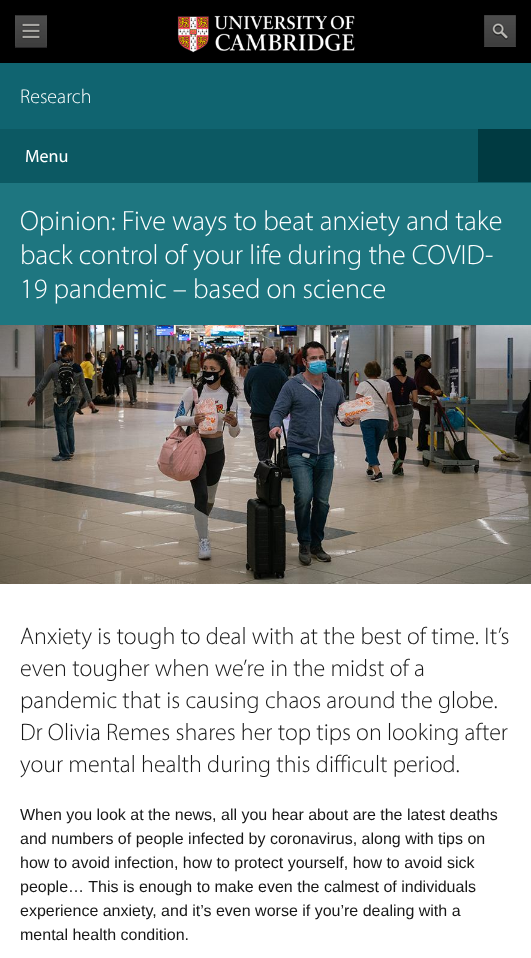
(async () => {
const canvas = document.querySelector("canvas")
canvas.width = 531
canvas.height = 958
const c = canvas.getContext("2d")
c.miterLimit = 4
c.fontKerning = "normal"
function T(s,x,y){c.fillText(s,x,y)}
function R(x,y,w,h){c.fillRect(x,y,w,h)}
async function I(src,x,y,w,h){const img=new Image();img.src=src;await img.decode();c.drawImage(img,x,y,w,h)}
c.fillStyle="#000"
R(0,0,531,958)
await I("1.png",15,15,32,33)
await I("2.png",177,15,178,38)
await I("3.png",484,15,32,32)
c.fillStyle="#106470"
R(0,63,531,66)
c.font="300 20px Myriad"
c.fillStyle="#fff"
T("Research",20,103)
c.fillStyle="#0c5963"
R(0,129,531,54)
c.font="18px Myriad"
c.fillStyle="#fff"
T("Menu",25,162)
c.fillStyle="#003a41"
R(478,129,53,53)
c.fillStyle="#1e7680"
R(0,183,531,142)
c.font="300 28px Myriad"
c.fillStyle="#fff"
T("Opinion: Five ways to beat anxiety and take",20,230)
T("back control of your life during the COVID-",20,264)
T("19 pandemic – based on science",20,298)
R(0,584,531,374)
await I("4.png",0,325,531,259)
c.font="300 24px Myriad"
c.fillStyle="#171717"
T("Anxiety is tough to deal with at the best of time. It’s",20,644)
T("even tougher when we’re in the midst of a",20,676)
T("pandemic that is causing chaos around the globe.",20,708)
T("Dr Olivia Remes shares her top tips on looking after",20,740)
T("your mental health during this difficult period.",20,772)
c.font="16px Liberation Sans"
T("When you look at the news, all you hear about are the latest deaths",20,820)
T("and numbers of people infected by coronavirus, along with tips on",20,844)
T("how to avoid infection, how to protect yourself, how to avoid sick",20,868)
T("people… This is enough to make even the calmest of individuals",20,892)
T("experience anxiety, and it’s even worse if you’re dealing with a",20,916)
T("mental health condition.",20,940)
})()
